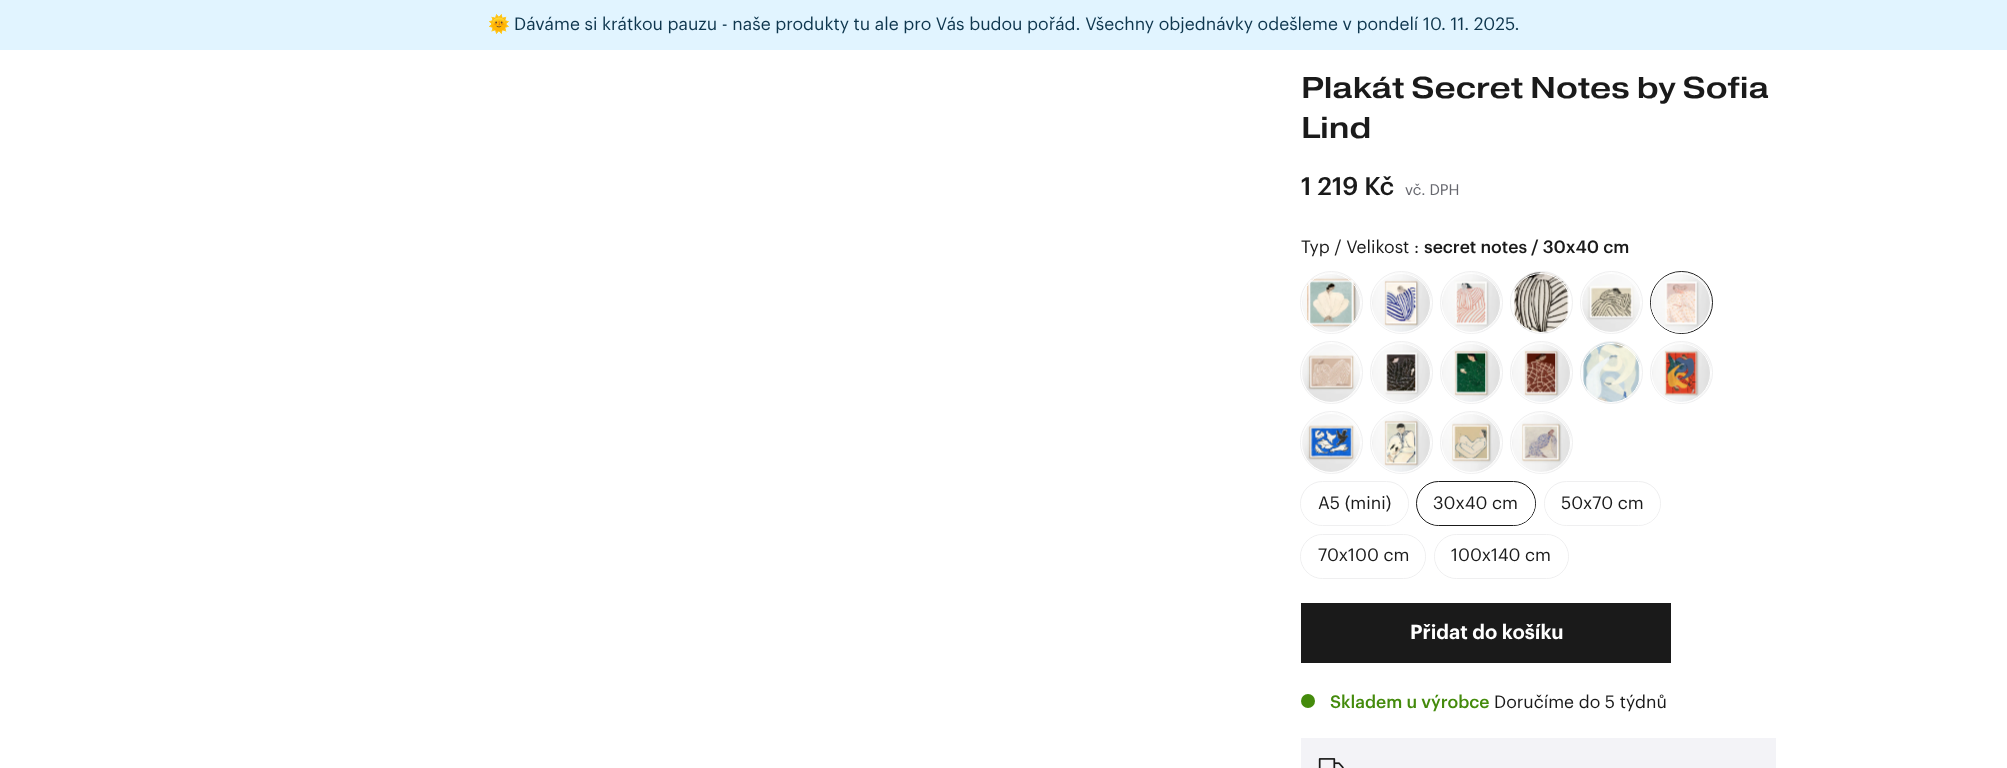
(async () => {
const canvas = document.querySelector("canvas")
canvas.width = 2007
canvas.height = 768
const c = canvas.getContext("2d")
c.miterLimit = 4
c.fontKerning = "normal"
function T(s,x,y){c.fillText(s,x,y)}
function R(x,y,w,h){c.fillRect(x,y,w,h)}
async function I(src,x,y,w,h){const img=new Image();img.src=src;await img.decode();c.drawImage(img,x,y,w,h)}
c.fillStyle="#fff"
R(0,0,2007,768)
c.fillStyle="#e1f4ff"
R(0,0,2007,50)
c.font="17.5px Noto Color Emoji"
c.fillStyle="#0e364e"
T("🌞",488,30)
c.font="17.5px Graphik"
T("Dáváme si krátkou pauzu - naše produkty tu ale pro Vás budou pořád. Všechny objednávky odešleme v pondelí 10. 11. 2025.",514,30)
c.font="500 30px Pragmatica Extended"
c.fillStyle="#1a1a1a"
T("Plakát Secret Notes by Sofia",1301,98)
T("Lind",1301,138)
c.font="500 25px Graphik"
T("1 219 Kč",1301,195)
c.font="15px Graphik"
c.fillStyle="#66676e"
T("vč. DPH",1405,195)
c.font="17.5px Graphik"
c.fillStyle="#1a1a1a"
T("Typ / Velikost :",1301,253)
c.font="500 17.5px Graphik"
T("secret notes / 30x40 cm",1424,253)
c.beginPath()
c.arc(1331.5,302.5,31,0,7)
c.strokeStyle="#efeff0"
c.stroke()
await I("1.png",1301,272,60,61)
c.beginPath()
c.arc(1331,303,29.5,0,7)
c.strokeStyle="#fff"
c.stroke()
c.beginPath()
c.arc(1401.5,302.5,31,0,7)
c.strokeStyle="#efeff0"
c.stroke()
await I("2.png",1371,272,60,61)
c.beginPath()
c.arc(1401,303,29.5,0,7)
c.strokeStyle="#fff"
c.stroke()
c.beginPath()
c.arc(1471.5,302.5,31,0,7)
c.strokeStyle="#efeff0"
c.stroke()
await I("3.png",1441,272,60,61)
c.beginPath()
c.arc(1471,303,29.5,0,7)
c.strokeStyle="#fff"
c.stroke()
c.beginPath()
c.arc(1541.5,302.5,31,0,7)
c.strokeStyle="#efeff0"
c.stroke()
await I("4.png",1514,272,55,61)
c.beginPath()
c.arc(1541,303,29.5,0,7)
c.strokeStyle="#fff"
c.stroke()
c.beginPath()
c.arc(1611.5,302.5,31,0,7)
c.strokeStyle="#efeff0"
c.stroke()
await I("5.png",1581,273,60,60)
c.beginPath()
c.arc(1611,303,29.5,0,7)
c.strokeStyle="#fff"
c.stroke()
c.beginPath()
c.arc(1681.5,302.5,31,0,7)
c.strokeStyle="#1a1a1a"
c.stroke()
await I("6.png",1651,272,61,61)
c.beginPath()
c.arc(1681,303,29.5,0,7)
c.strokeStyle="#fff"
c.stroke()
c.beginPath()
c.arc(1331.5,372.5,31,0,7)
c.strokeStyle="#efeff0"
c.stroke()
await I("7.png",1301,343,60,60)
c.beginPath()
c.arc(1331,373,29.5,0,7)
c.strokeStyle="#fff"
c.stroke()
c.beginPath()
c.arc(1401.5,372.5,31,0,7)
c.strokeStyle="#efeff0"
c.stroke()
await I("8.png",1371,342,60,61)
c.beginPath()
c.arc(1401,373,29.5,0,7)
c.strokeStyle="#fff"
c.stroke()
c.beginPath()
c.arc(1471.5,372.5,31,0,7)
c.strokeStyle="#efeff0"
c.stroke()
await I("9.png",1441,342,60,61)
c.beginPath()
c.arc(1471,373,29.5,0,7)
c.strokeStyle="#fff"
c.stroke()
c.beginPath()
c.arc(1541.5,372.5,31,0,7)
c.strokeStyle="#efeff0"
c.stroke()
await I("10.png",1511,342,60,61)
c.beginPath()
c.arc(1541,373,29.5,0,7)
c.strokeStyle="#fff"
c.stroke()
c.beginPath()
c.arc(1611.5,372.5,31,0,7)
c.strokeStyle="#efeff0"
c.stroke()
await I("11.png",1581,342,60,61)
c.beginPath()
c.arc(1611,373,29.5,0,7)
c.strokeStyle="#fff"
c.stroke()
c.beginPath()
c.arc(1681.5,372.5,31,0,7)
c.strokeStyle="#efeff0"
c.stroke()
await I("12.png",1651,342,60,61)
c.beginPath()
c.arc(1681,373,29.5,0,7)
c.strokeStyle="#fff"
c.stroke()
c.beginPath()
c.arc(1331.5,442.5,31,0,7)
c.strokeStyle="#efeff0"
c.stroke()
await I("13.png",1301,413,60,60)
c.beginPath()
c.arc(1331,443,29.5,0,7)
c.strokeStyle="#fff"
c.stroke()
c.beginPath()
c.arc(1401.5,442.5,31,0,7)
c.strokeStyle="#efeff0"
c.stroke()
await I("14.png",1371,412,60,61)
c.beginPath()
c.arc(1401,443,29.5,0,7)
c.strokeStyle="#fff"
c.stroke()
c.beginPath()
c.arc(1471.5,442.5,31,0,7)
c.strokeStyle="#efeff0"
c.stroke()
await I("15.png",1441,412,60,61)
c.beginPath()
c.arc(1471,443,29.5,0,7)
c.strokeStyle="#fff"
c.stroke()
c.beginPath()
c.arc(1541.5,442.5,31,0,7)
c.strokeStyle="#efeff0"
c.stroke()
await I("16.png",1511,412,60,61)
c.beginPath()
c.arc(1541,443,29.5,0,7)
c.strokeStyle="#fff"
c.stroke()
c.beginPath()
c.roundRect(1300.5,481.5,108,44,22)
c.strokeStyle="#efeff0"
c.stroke()
c.beginPath()
c.roundRect(1301.5,483.5,106,41,20.5)
c.strokeStyle="#fff"
c.stroke()
c.font="17.5px Graphik"
T("A5 (mini)",1318,509)
c.beginPath()
c.roundRect(1416.5,481.5,119,44,22)
c.strokeStyle="#1a1a1a"
c.stroke()
c.beginPath()
c.roundRect(1418.5,483.5,116,41,20.5)
c.strokeStyle="#fff"
c.stroke()
T("30x40 cm",1433,509)
c.beginPath()
c.roundRect(1544.5,481.5,116,44,22)
c.strokeStyle="#efeff0"
c.stroke()
c.beginPath()
c.roundRect(1545.5,483.5,114,41,20.5)
c.strokeStyle="#fff"
c.stroke()
T("50x70 cm",1561,509)
c.beginPath()
c.roundRect(1300.5,534.5,125,44,22)
c.strokeStyle="#efeff0"
c.stroke()
c.beginPath()
c.roundRect(1301.5,535.5,123,42,21)
c.strokeStyle="#fff"
c.stroke()
T("70x100 cm",1318,561)
c.beginPath()
c.roundRect(1434.5,534.5,134,44,22)
c.strokeStyle="#efeff0"
c.stroke()
c.beginPath()
c.roundRect(1435.5,535.5,132,42,21)
c.strokeStyle="#fff"
c.stroke()
T("100x140 cm",1451,561)
R(1301,603,370,60)
c.font="600 20px Graphik"
c.fillStyle="#fff"
T("Přidat do košíku",1410,639)
c.fillStyle="#448b0c"
c.beginPath()
c.arc(1308,701,7,0,7)
c.fill()
c.font="500 17.5px Graphik"
T("Skladem u výrobce",1330,708)
c.font="17.5px Graphik"
c.fillStyle="#1a1a1a"
T("Doručíme do 5 týdnů",1494,708)
c.fillStyle="#f3f3f7"
R(1301,738,475,30)
await I("17.png",1318,758,26,10)
})()
